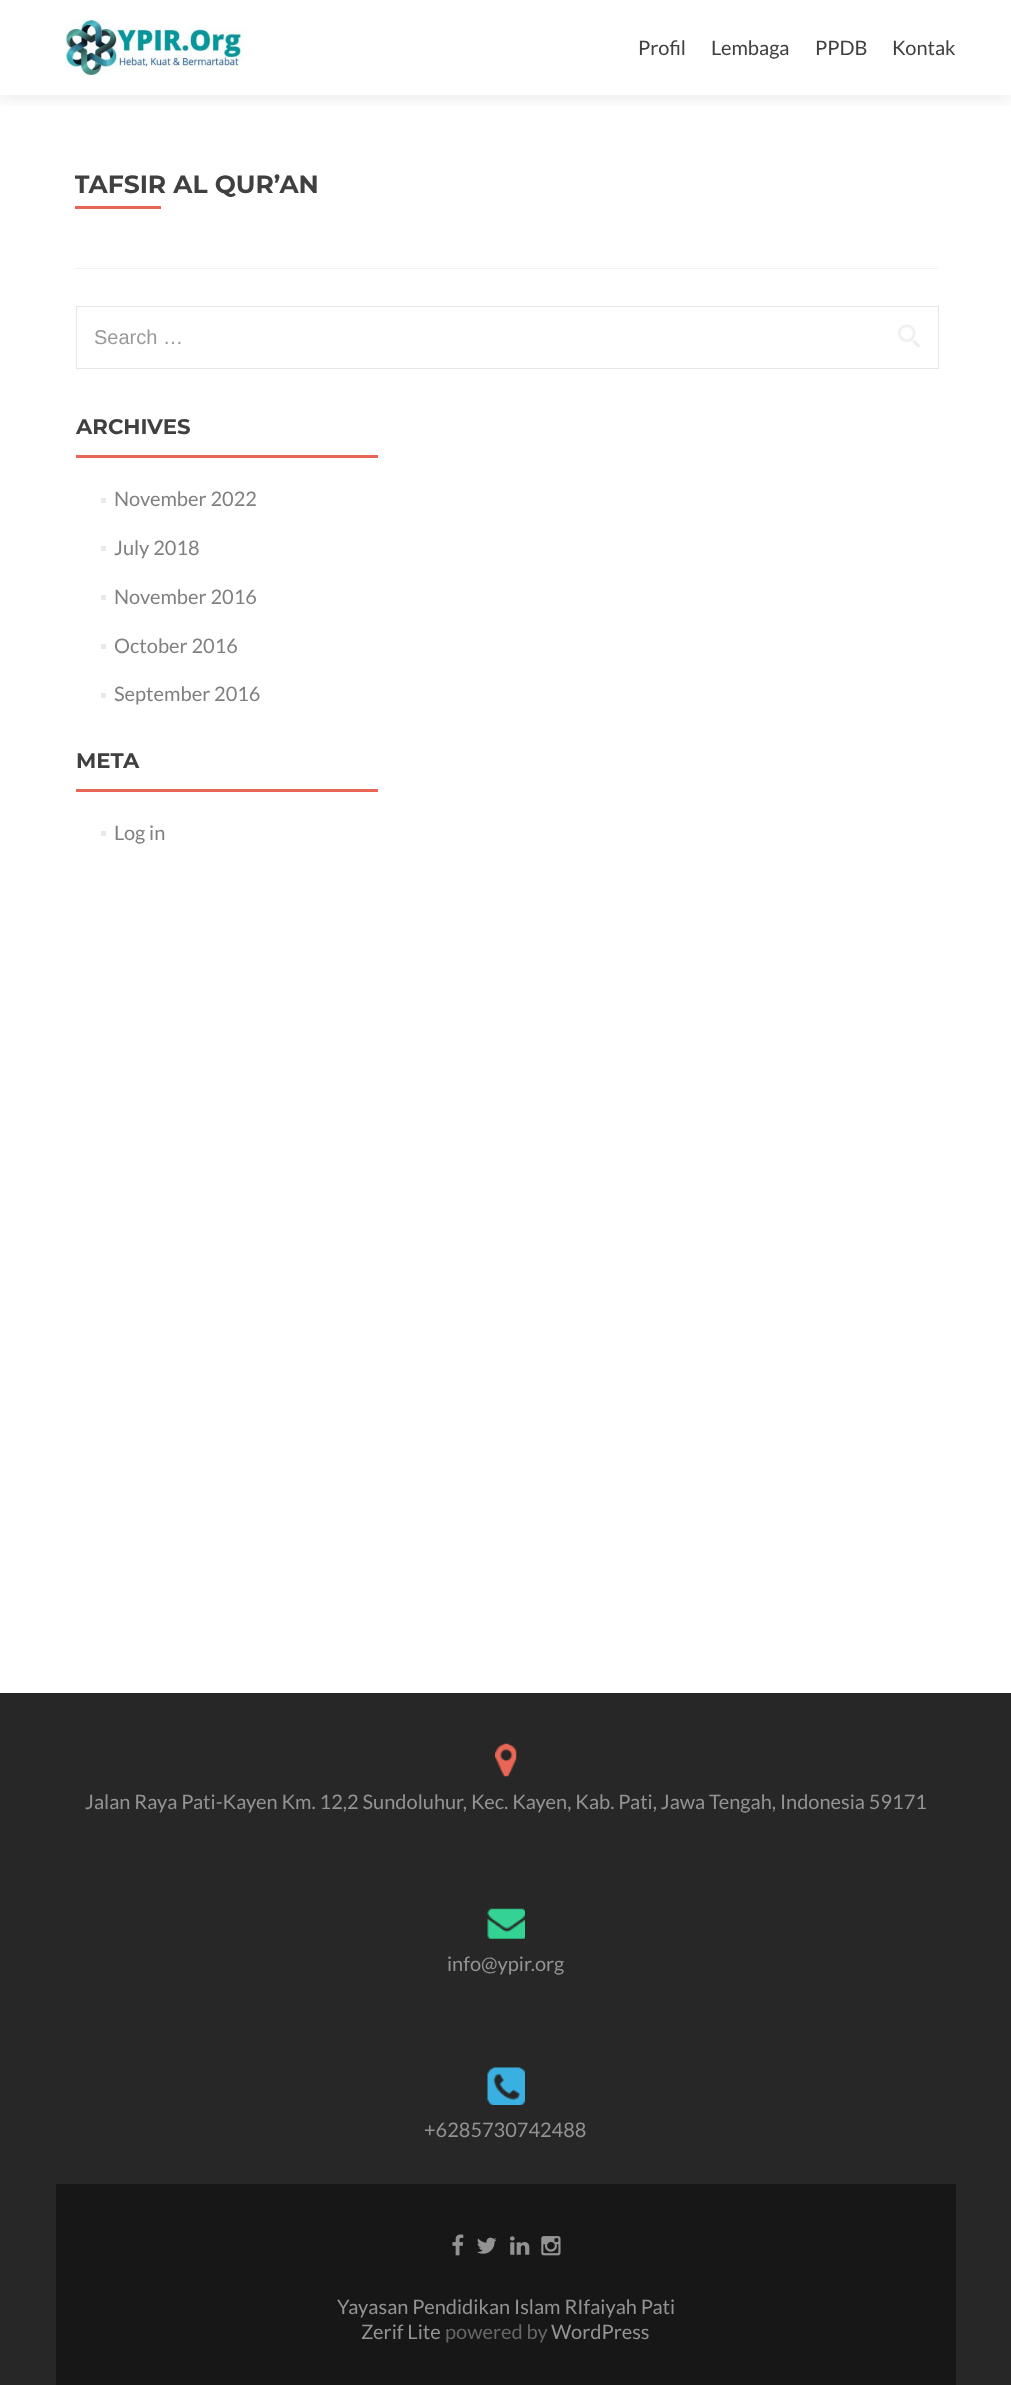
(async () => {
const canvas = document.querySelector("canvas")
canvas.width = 1011
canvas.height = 2385
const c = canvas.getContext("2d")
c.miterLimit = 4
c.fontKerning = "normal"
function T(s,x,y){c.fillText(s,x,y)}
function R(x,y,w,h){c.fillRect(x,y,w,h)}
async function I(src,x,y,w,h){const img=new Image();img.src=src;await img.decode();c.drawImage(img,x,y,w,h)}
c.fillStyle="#fff"
R(0,0,1011,2385)
c.save()
c.beginPath()
c.rect(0,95,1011,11)
c.clip()
c.fillStyle="#32323214"
c.filter="blur(7px)"
c.beginPath()
c.rect(0,6,1011,95)
c.fill()
c.filter="none"
c.restore()
await I("1.png",65,19,182,57)
c.font="20px Lato"
c.fillStyle="#404040"
T("Profil",638,55)
T("Lembaga",711,55)
T("PPDB",815,55)
T("Kontak",892,55)
c.fillStyle="#f2f2f2"
R(75,268,863,1)
c.save()
c.beginPath()
c.rect(75,170,863,40)
c.clip()
c.font="100 25px Montserrat"
c.fillStyle="#404040"
T("TAFSIR AL QUR’AN",74,193)
c.restore()
c.fillStyle="#e96656"
R(75,206,86,3)
c.fillStyle="#f2f2f2"
R(56,245,1,1)
c.strokeStyle="#e6e6e6"
c.strokeRect(76.5,306.5,862,62)
c.font="20px Liberation Sans"
c.fillStyle="#999"
T("Search …",94,344)
await I("2.png",897,324,23,24)
c.font="100 21.25px Montserrat"
c.fillStyle="#404040"
T("ARCHIVES",76,434)
c.fillStyle="#e96656"
R(76,455,302,3)
c.fillStyle="#e9e9e9"
R(101,498,5,5)
c.font="20px Lato"
c.fillStyle="#808080"
T("November 2022",114,506)
c.fillStyle="#e9e9e9"
R(101,546,5,5)
c.fillStyle="#808080"
T("July 2018",114,555)
c.fillStyle="#e9e9e9"
R(101,595,5,5)
c.fillStyle="#808080"
T("November 2016",114,604)
c.fillStyle="#e9e9e9"
R(101,644,5,5)
c.fillStyle="#808080"
T("October 2016",114,653)
c.fillStyle="#e9e9e9"
R(101,693,5,5)
c.fillStyle="#808080"
T("September 2016",114,701)
c.font="100 21.25px Montserrat"
c.fillStyle="#404040"
T("META",76,768)
c.fillStyle="#e96656"
R(76,789,302,3)
c.fillStyle="#e9e9e9"
R(101,831,5,5)
c.font="20px Lato"
c.fillStyle="#808080"
T("Log in",114,840)
c.fillStyle="#272727"
R(0,1693,1011,692)
await I("3.png",495,1743,22,34)
c.fillStyle="#939393"
T("Jalan Raya Pati-Kayen Km. 12,2 Sundoluhur, Kec. Kayen, Kab. Pati, Jawa Tengah, Indonesia 59171",85,1809)
await I("4.png",487,1908,38,31)
T("info@ypir.org",447,1971)
await I("5.png",487,2067,38,38)
T("+6285730742488",424,2137)
c.fillStyle="#171717"
R(56,2184,900,201)
await I("6.png",452,2234,12,22)
await I("7.png",477,2237,20,17)
await I("8.png",510,2236,20,19)
await I("9.png",541,2236,20,20)
c.fillStyle="#939393"
T("Yayasan Pendidikan Islam RIfaiyah Pati",337,2314)
T("Zerif Lite",361,2339)
c.fillStyle="#666"
T("powered by",445,2339)
c.fillStyle="#939393"
T("WordPress",551,2339)
})()
